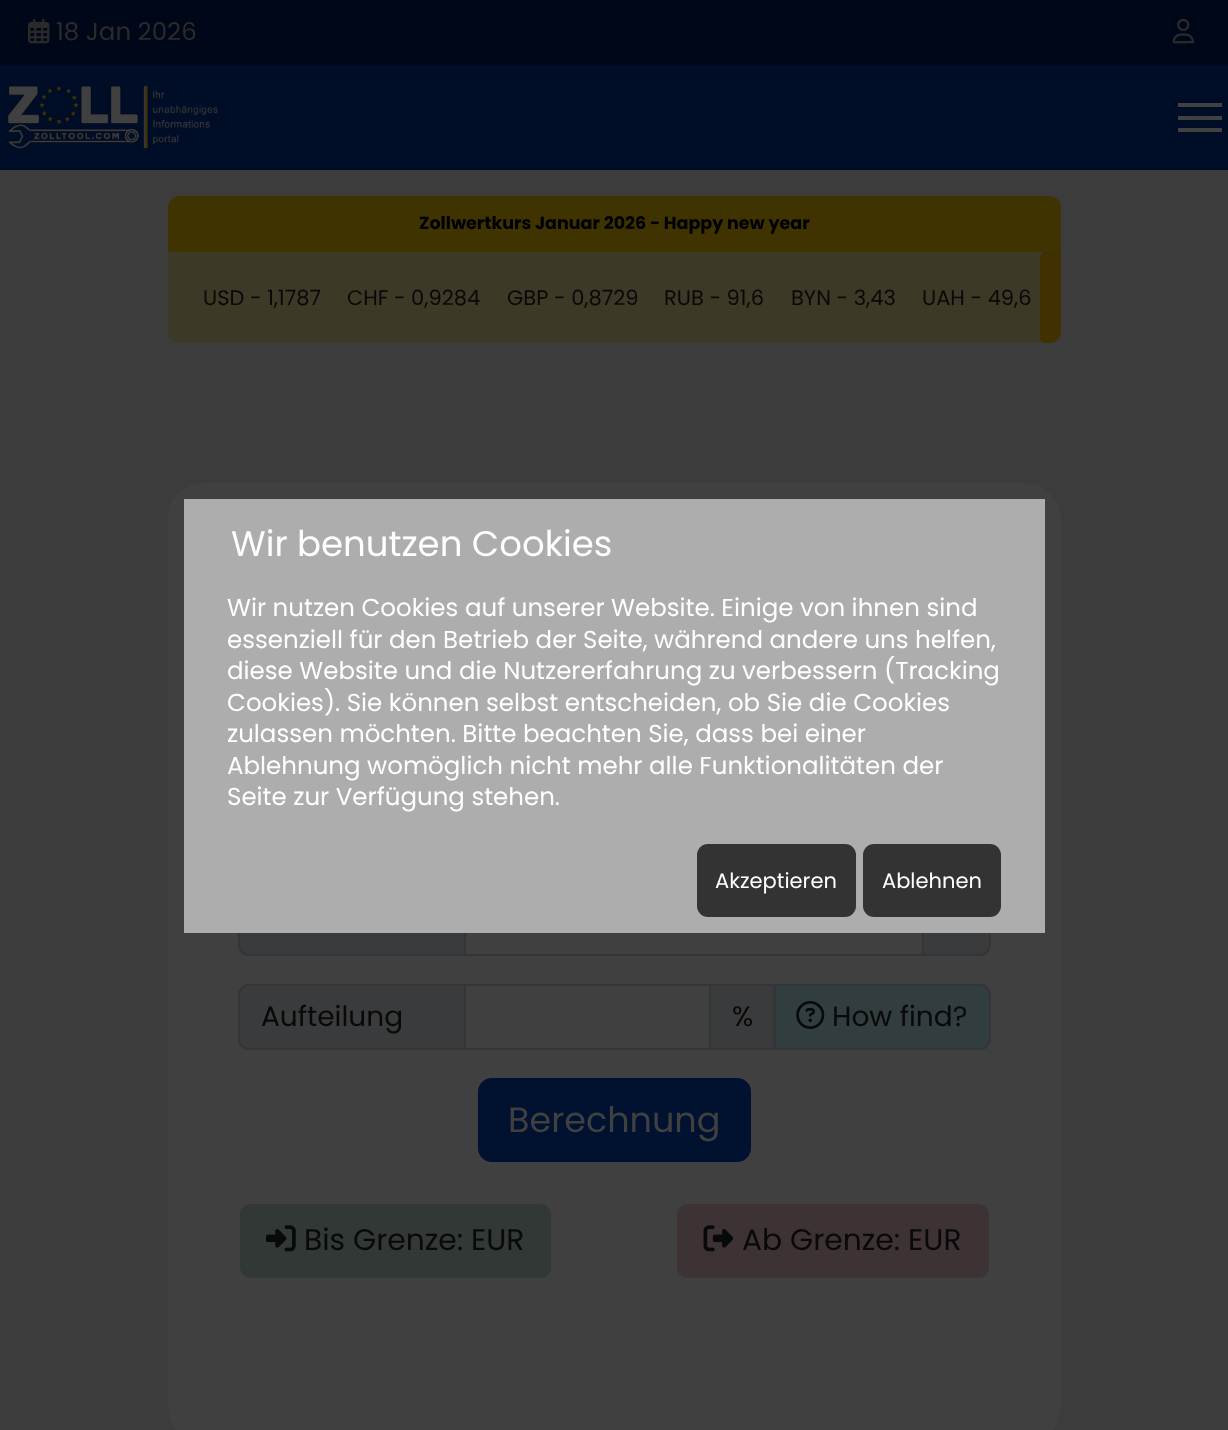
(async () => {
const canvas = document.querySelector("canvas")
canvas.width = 1228
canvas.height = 1430
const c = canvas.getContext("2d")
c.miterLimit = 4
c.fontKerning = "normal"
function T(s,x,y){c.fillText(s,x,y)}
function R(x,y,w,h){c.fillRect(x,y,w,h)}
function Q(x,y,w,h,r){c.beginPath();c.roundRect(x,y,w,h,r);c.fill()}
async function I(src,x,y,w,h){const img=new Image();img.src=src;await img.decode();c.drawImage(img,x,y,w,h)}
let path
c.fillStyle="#3c3c3c"
R(0,0,1228,1430)
c.fillStyle="#000718"
R(0,0,1228,65)
await I("1.png",28,18,22,26)
c.font="24.5px Poppins"
c.fillStyle="#2b2b2b"
T("18 Jan 2026",56,40)
await I("2.png",1172,18,22,26)
c.fillStyle="#000d26"
R(0,65,1228,105)
await I("3.png",7,85,211,64)
c.fillStyle="#404040"
R(1178,103,44,4)
R(1178,116,44,4)
R(1178,128,44,4)
c.fillStyle="#3d3927"
Q(168,196,893,147,12)
c.fillStyle="#3f3301"
c.beginPath()
c.roundRect(168,196,893,56,[12,12,0,0])
c.fill()
c.font="bold 17.5px Poppins"
c.fillStyle="#000"
T("Zollwertkurs Januar 2026 - Happy new year",419,229)
c.font="21px Poppins"
c.fillStyle="#090909"
T("USD - 1,1787",203,305)
T("CHF - 0,9284",347,305)
T("GBP - 0,8729",507,305)
T("RUB - 91,6",664,305)
T("BYN - 3,43",791,305)
T("UAH - 49,6",922,305)
c.fillStyle="#403002"
c.beginPath()
c.roundRect(1040,252,21,91,[7,0,12,7])
c.fill()
path = new Path2D("M1047 252c-4 0-7 3-7 7v77c0 4 3 7 7 7h2c2 0 5-1 7-2c-16 0-14 0-14-18v-51c0-22-1-18 19-18v-2z")
c.fill(path)
c.fillStyle="#404040"
Q(168,483,893,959,35)
c.fillStyle="#3a3b3c"
c.beginPath()
c.roundRect(239,890,226,65,[10,0,0,10])
c.fill()
c.strokeStyle="#343537"
c.lineWidth=2
c.stroke()
c.beginPath()
c.roundRect(923,890,67,65,[0,10,10,0])
c.fill()
c.stroke()
c.strokeRect(465,890,458,65)
c.beginPath()
c.roundRect(239,985,226,64,[10,0,0,10])
c.fill()
c.stroke()
c.font="28px Poppins"
c.fillStyle="#090909"
T("Aufteilung",261,1026)
c.fillStyle="#3a3b3c"
c.beginPath()
c.rect(710,985,64,64)
c.fill()
c.stroke()
c.strokeRect(465,985,245,64)
c.fillStyle="#090909"
T("%",732,1026)
c.fillStyle="#03333c40"
c.beginPath()
c.roundRect(775,985,215,64,[0,10,10,0])
c.fill()
c.stroke()
await I("4.png",796,1001,29,28)
c.fillStyle="#090909"
T("How find?",832,1026)
c.fillStyle="#011130"
c.beginPath()
c.roundRect(479,1079,271,82,13)
c.fill()
c.strokeStyle="#011130"
c.stroke()
c.font="35px Poppins"
c.fillStyle="#404040"
T("Berechnung",508,1132)
c.fillStyle="#323835"
Q(240,1204,311,74,11)
await I("5.png",266,1225,30,27)
c.font="29.75px Poppins"
c.fillStyle="#090909"
T("Bis Grenze: EUR",304,1250)
c.fillStyle="#3e3334"
Q(677,1204,312,74,11)
await I("6.png",703,1225,31,27)
c.fillStyle="#090909"
T("Ab Grenze: EUR",742,1250)
c.fillStyle="#adadad"
R(184,499,861,434)
c.font="35.5px Poppins"
c.fillStyle="#fff"
T("Wir benutzen Cookies",231,556)
c.font="24.5px Poppins"
T("Wir nutzen Cookies auf unserer Website. Einige von ihnen sind",227,616)
T("essenziell für den Betrieb der Seite, während andere uns helfen,",227,648)
T("diese Website und die Nutzererfahrung zu verbessern (Tracking",227,679)
T("Cookies). Sie können selbst entscheiden, ob Sie die Cookies",227,711)
T("zulassen möchten. Bitte beachten Sie, dass bei einer",227,742)
T("Ablehnung womöglich nicht mehr alle Funktionalitäten der",227,774)
T("Seite zur Verfügung stehen.",227,805)
c.fillStyle="#333"
Q(697,844,159,73,11)
c.font="21px Poppins"
c.fillStyle="#fff"
T("Akzeptieren",715,888)
c.fillStyle="#333"
Q(863,844,138,73,11)
c.fillStyle="#fff"
T("Ablehnen",882,888)
})()
